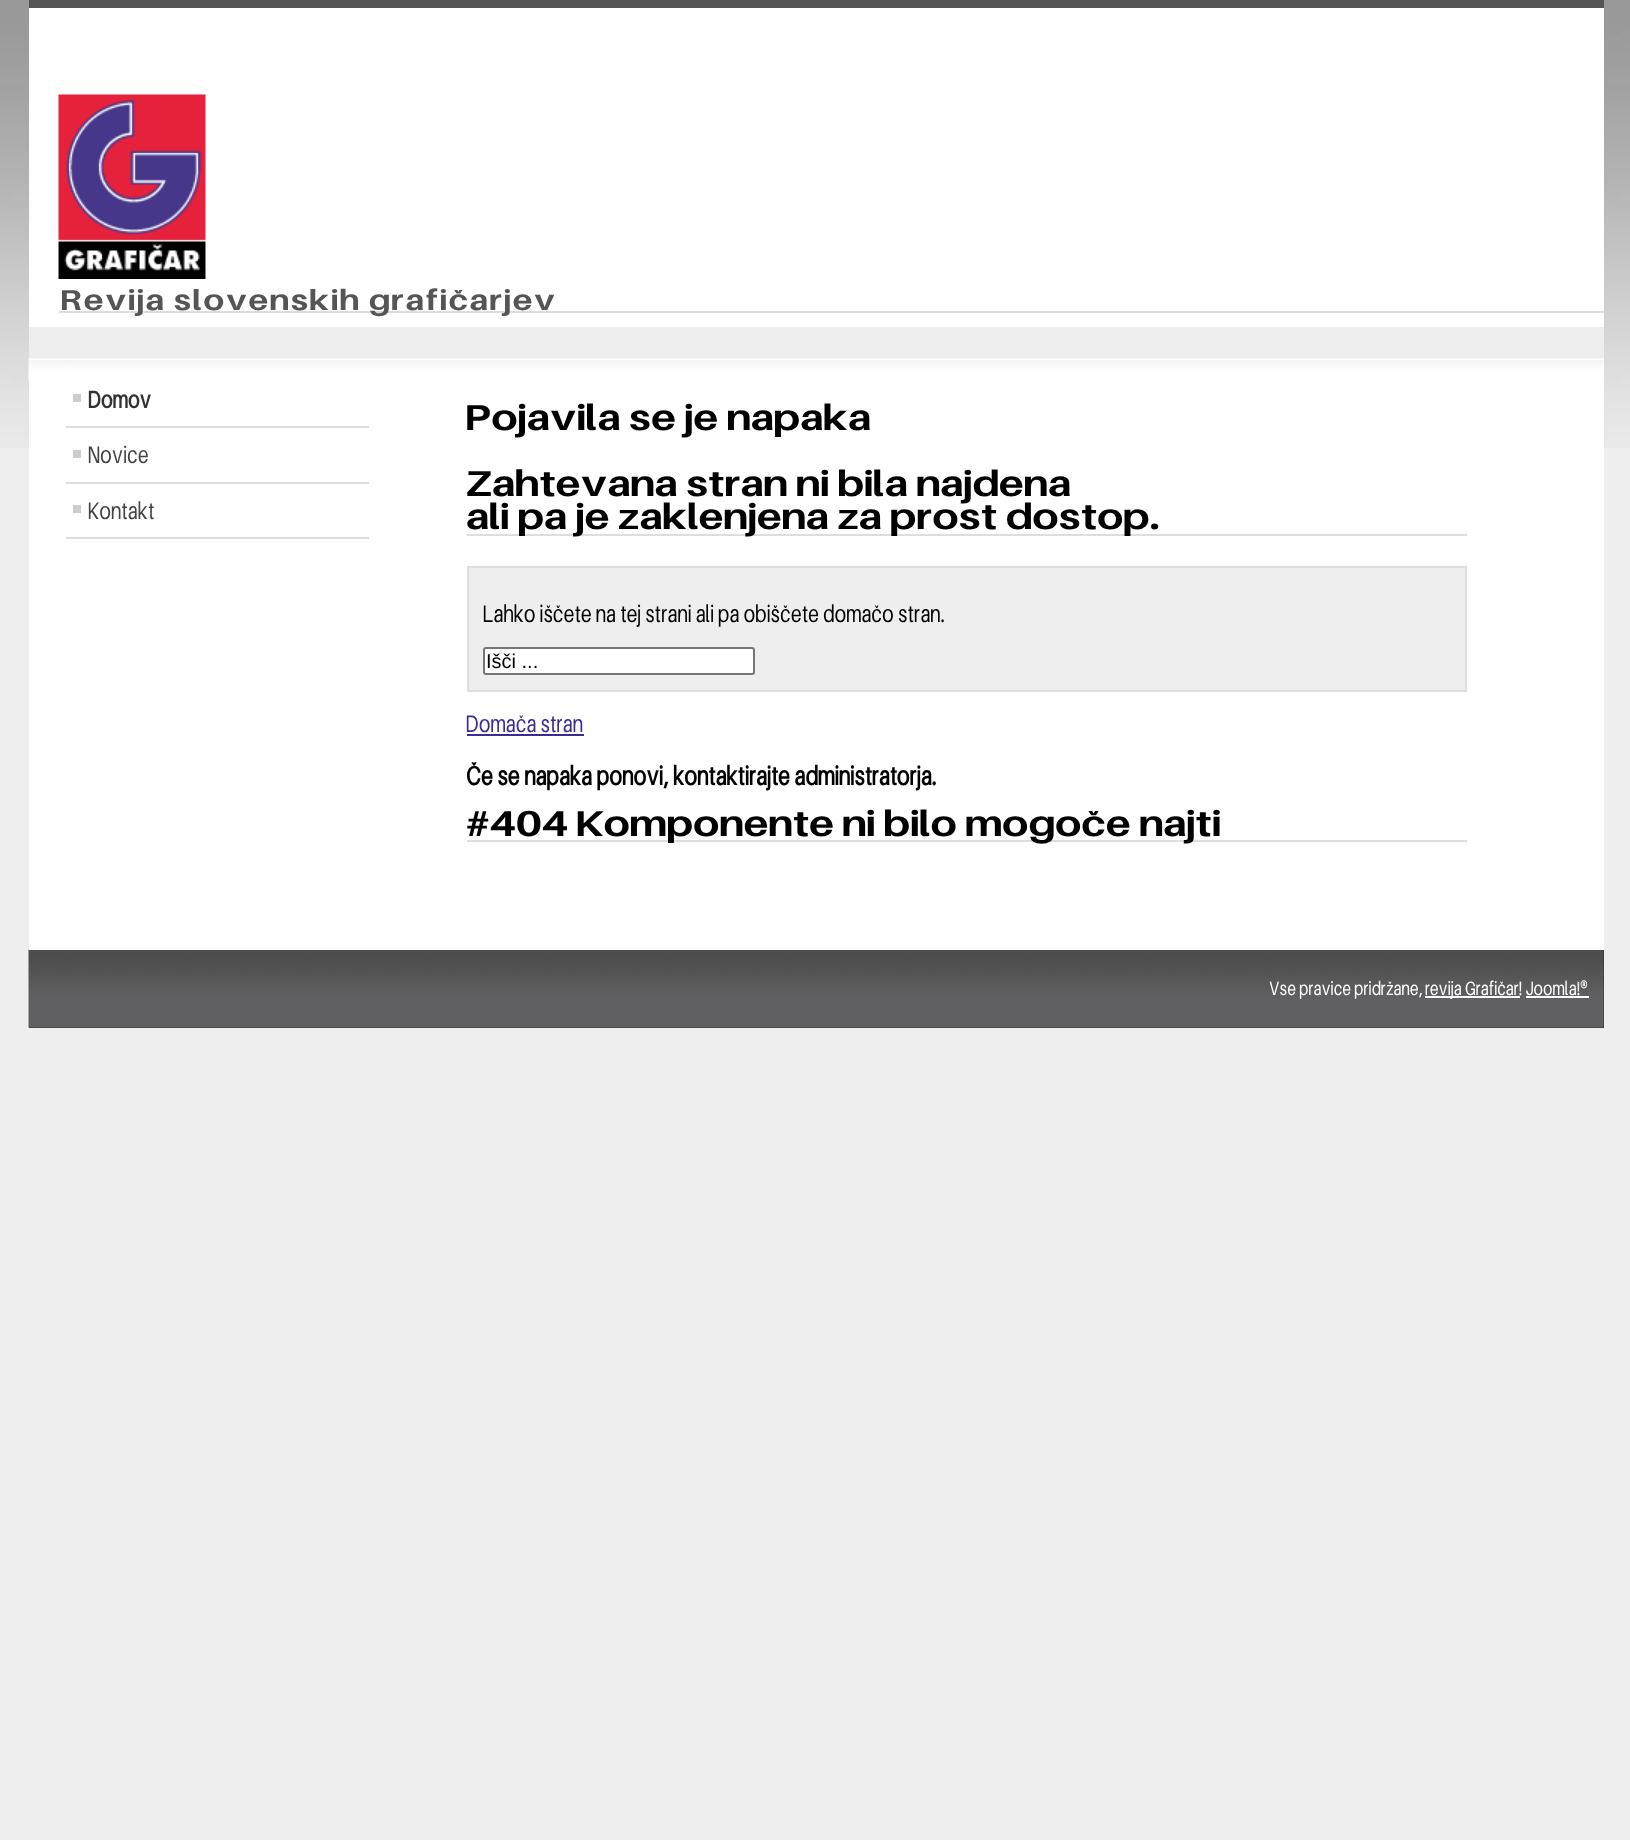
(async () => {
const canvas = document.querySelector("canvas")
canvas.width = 1630
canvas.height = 1840
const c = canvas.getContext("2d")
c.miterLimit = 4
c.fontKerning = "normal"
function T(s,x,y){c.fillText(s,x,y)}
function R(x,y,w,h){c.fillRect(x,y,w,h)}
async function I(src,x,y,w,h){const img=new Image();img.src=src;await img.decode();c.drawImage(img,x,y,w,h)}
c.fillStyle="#eee"
R(0,0,1630,1840)
await I("1.png",0,0,1630,448)
c.fillStyle="#fff"
R(29,8,1575,319)
c.fillStyle="#555"
R(29,0,1575,8)
c.fillStyle="#ddd"
R(59,311,1545,2)
await I("2.png",58,94,148,185)
c.letterSpacing="1.5px"
c.font="bold 28.75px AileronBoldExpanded"
c.fillStyle="#555"
T("Revija slovenskih grafičarjev",61,310)
c.fillStyle="#eee"
R(29,327,1575,30)
c.fillStyle="#333"
R(29,950,1575,78)
await I("4.png",28,949,1576,79)
c.fillStyle="#fff"
R(29,357,1575,593)
await I("3.png",28,357,1576,23)
c.fillStyle="#ddd"
R(66,426,303,2)
c.fillStyle="#ccc"
R(73,394,8,8)
c.letterSpacing="0px"
c.font="bold 24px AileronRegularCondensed"
c.fillStyle="#333"
T("Domov",88,408)
c.fillStyle="#ddd"
R(66,482,303,2)
c.fillStyle="#ccc"
R(73,450,8,8)
c.font="24px AileronRegularCondensed"
c.fillStyle="#444"
T("Novice",88,463)
c.fillStyle="#ddd"
R(66,537,303,2)
c.fillStyle="#ccc"
R(73,505,8,8)
c.fillStyle="#444"
T("Kontakt",88,519)
c.fillStyle="#ddd"
R(467,534,1000,2)
c.font="bold 36px AileronBoldExpanded"
c.fillStyle="#000"
T("Pojavila se je napaka",466,430)
T("Zahtevana stran ni bila najdena",466,496)
T("ali pa je zaklenjena za prost dostop.",466,529)
c.fillStyle="#eee"
c.beginPath()
c.rect(468,567,998,124)
c.fill()
c.strokeStyle="#ddd"
c.lineWidth=2
c.stroke()
c.font="24px AileronRegularCondensed"
c.fillStyle="#000"
T("Lahko iščete na tej strani ali pa obiščete domačo stran.",483,622)
c.fillStyle="#fff"
c.beginPath()
c.roundRect(484,648,270,26,2)
c.fill()
c.strokeStyle="#767676"
c.stroke()
c.font="20px Liberation Sans"
c.fillStyle="#000"
T("Išči ...",486,668)
c.font="24px AileronRegularCondensed"
c.fillStyle="#3b2a98"
T("Domača stran",466,732)
R(467,734,117,2)
c.font="bold 26.4px AileronRegularCondensed"
c.fillStyle="#000"
T("Če se napaka ponovi, kontaktirajte administratorja.",466,785)
c.fillStyle="#ddd"
R(467,840,1000,2)
c.font="bold 36px AileronBoldExpanded"
c.fillStyle="#000"
T("#404 Komponente ni bilo mogoče najti",466,836)
c.font="19.25px AileronRegularCondensed"
c.fillStyle="#fff"
T("Vse pravice pridržane,",1269,995)
R(1425,996,95,2)
T("revija Grafičar! Joomla!®",1425,995)
R(1526,996,63,2)
})()
